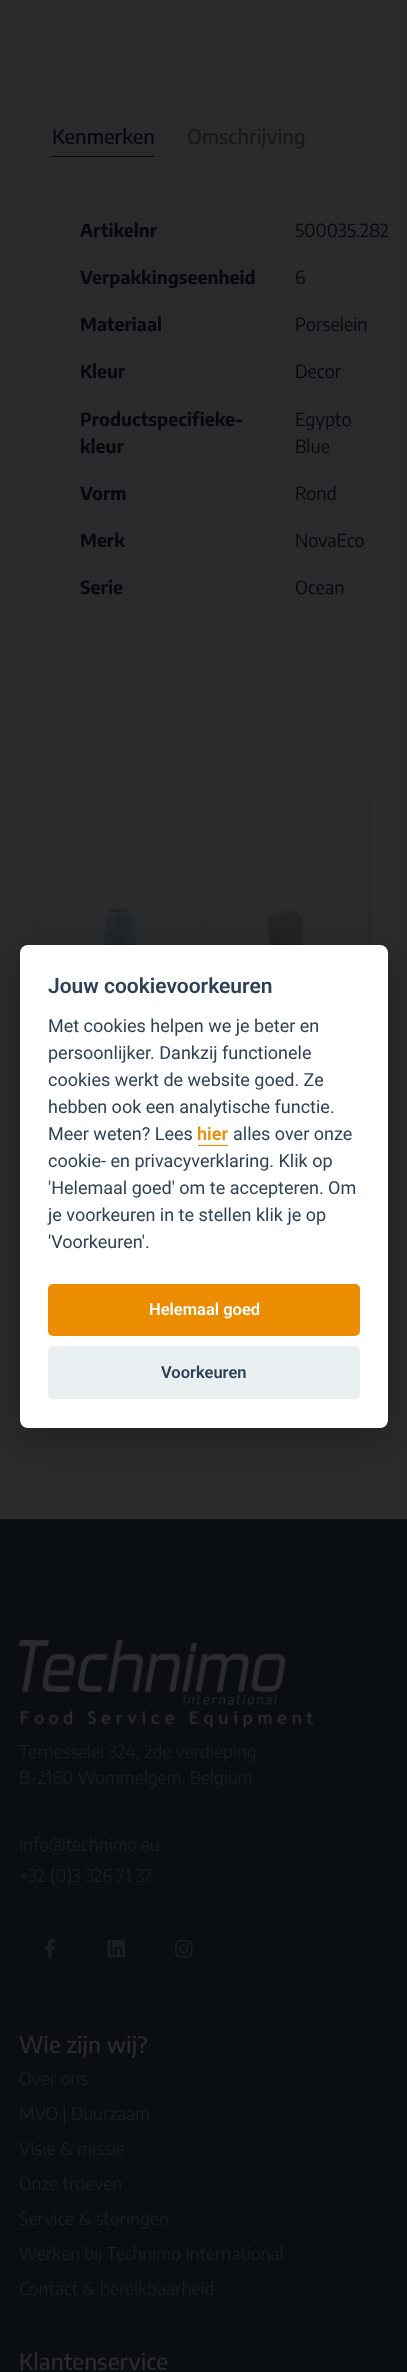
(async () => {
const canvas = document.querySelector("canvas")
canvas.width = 407
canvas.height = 2372
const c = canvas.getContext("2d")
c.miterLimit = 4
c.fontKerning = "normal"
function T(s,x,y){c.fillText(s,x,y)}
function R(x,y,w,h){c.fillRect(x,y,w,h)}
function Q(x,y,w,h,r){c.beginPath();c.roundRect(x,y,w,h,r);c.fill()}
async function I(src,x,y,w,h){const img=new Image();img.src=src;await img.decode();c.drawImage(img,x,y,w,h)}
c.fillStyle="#2a2b2d"
R(0,0,407,2372)
c.beginPath()
c.roundRect(19.5,-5.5,369,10,4.5)
c.strokeStyle="#272829"
c.stroke()
c.fillStyle="#272829"
R(0,65,407,1)
c.fillStyle="#07080b"
R(51,156,104,1)
c.font="500 20px Encode Sans Condensed"
T("Kenmerken",52,144)
c.fillStyle="#161819"
T("Omschrijving",187,144)
c.fillStyle="#272829"
R(0,176,407,1)
R(19,178,1,452)
c.font="bold 18px Encode Sans Condensed"
c.fillStyle="#07080b"
T("Artikelnr",80,237)
c.font="18px Encode Sans Condensed"
T("500035.282",295,237)
c.font="bold 18px Encode Sans Condensed"
T("Verpakkingseenheid",80,284)
c.font="18px Encode Sans Condensed"
T("6",295,284)
c.font="bold 18px Encode Sans Condensed"
T("Materiaal",80,331)
c.font="18px Encode Sans Condensed"
T("Porselein",295,331)
c.font="bold 18px Encode Sans Condensed"
T("Kleur",80,378)
c.font="18px Encode Sans Condensed"
T("Decor",295,378)
c.font="bold 18px Encode Sans Condensed"
T("Productspecifieke-",80,426)
T("kleur",80,453)
c.font="18px Encode Sans Condensed"
T("Egypto",295,426)
T("Blue",295,453)
c.font="bold 18px Encode Sans Condensed"
T("Vorm",80,500)
c.font="18px Encode Sans Condensed"
T("Rond",295,500)
c.font="bold 18px Encode Sans Condensed"
T("Merk",80,547)
c.font="18px Encode Sans Condensed"
T("NovaEco",295,547)
c.font="bold 18px Encode Sans Condensed"
T("Serie",80,594)
c.font="18px Encode Sans Condensed"
T("Ocean",295,594)
c.fillStyle="#272829"
R(38,800,332,1)
R(369,800,1,145)
R(38,800,1,145)
R(203,801,1,144)
await I("1.png",102,905,37,40)
R(368,801,1,144)
await I("2.png",267,905,37,40)
c.fillStyle="#02020347"
c.filter="blur(19px)"
c.beginPath()
c.roundRect(20,958,368,482,8)
c.fill()
c.filter="none"
c.fillStyle="#fff"
Q(20,945,368,483,8)
c.font="600 21px Roboto"
c.fillStyle="#2d4156"
T("Jouw cookievoorkeuren",48,993)
c.font="18px Roboto"
T("Met cookies helpen we je beter en",48,1032)
T("persoonlijker. Dankzij functionele",48,1059)
T("cookies werkt de website goed. Ze",48,1086)
T("hebben ook een analytische functie.",48,1113)
T("Meer weten? Lees",48,1140)
c.font="600 18px Roboto"
c.fillStyle="#ec8c00"
T("hier",197,1140)
R(198,1145,30,1)
c.font="18px Roboto"
c.fillStyle="#2d4156"
T("alles over onze",233,1140)
T("cookie- en privacyverklaring. Klik op",48,1167)
T("'Helemaal goed' om te accepteren. Om",48,1194)
T("je voorkeuren in te stellen klik je op",48,1221)
T("'Voorkeuren'.",48,1248)
c.fillStyle="#ec8c00"
Q(48,1284,312,52,5)
c.font="600 16.5px Roboto"
c.fillStyle="#fff"
T("Helemaal goed",149,1315)
c.fillStyle="#eaeff2"
Q(48,1346,312,53,5)
c.fillStyle="#2d4156"
T("Voorkeuren",161,1378)
c.fillStyle="#0a0e11"
R(0,1520,407,852)
c.fillStyle="#0e1114"
R(0,1519,407,1)
await I("3.png",18,1640,296,88)
c.font="17.5px Encode Sans Condensed"
c.fillStyle="#1b1e21"
T("Ternesselei 324, 2de verdieping",19,1758)
T("B-2160 Wommelgem, Belgium",19,1784)
T("info@technimo.eu",19,1851)
T("+32 (0)3 326 71 37",19,1882)
await I("4.png",44,1938,12,21)
await I("5.png",107,1940,18,18)
await I("6.png",175,1940,18,18)
c.font="500 22.5px Encode Sans Condensed"
c.fillStyle="#2a2b2d"
T("Wie zijn wij?",19,2053)
c.font="17.5px Encode Sans Condensed"
c.fillStyle="#1b1e21"
T("Over ons",19,2085)
T("MVO | Duurzaam",19,2120)
T("Visie & missie",19,2155)
T("Onze troeven",19,2190)
T("Service & storingen",19,2225)
T("Werken bij Technimo International",19,2260)
T("Contact & bereikbaarheid",19,2295)
c.font="500 22.5px Encode Sans Condensed"
c.fillStyle="#2a2b2d"
T("Klantenservice",19,2370)
})()
